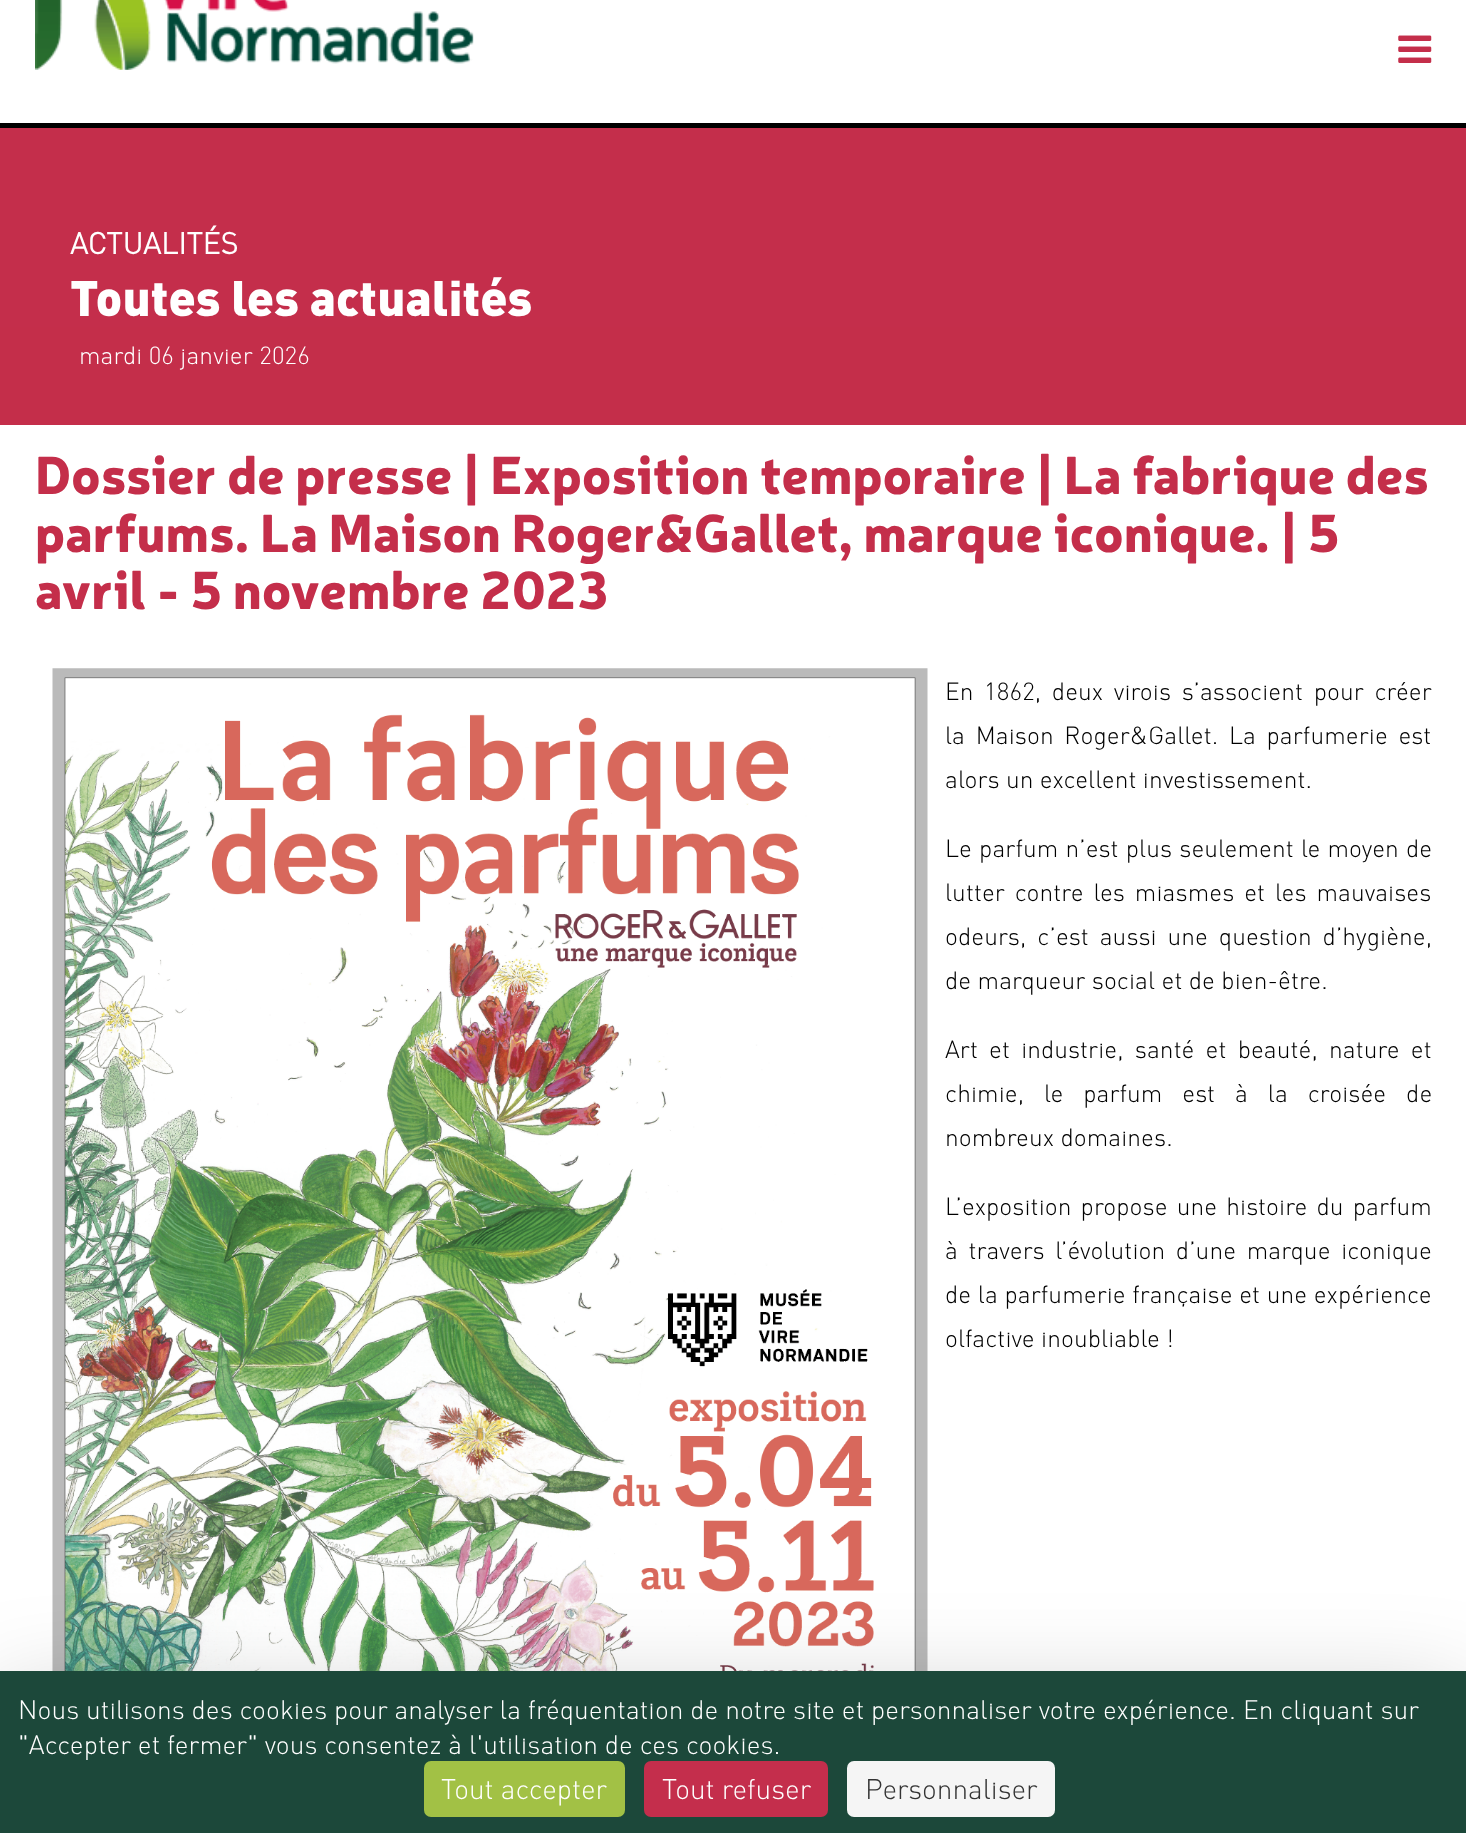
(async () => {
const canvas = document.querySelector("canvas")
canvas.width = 1466
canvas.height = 1833
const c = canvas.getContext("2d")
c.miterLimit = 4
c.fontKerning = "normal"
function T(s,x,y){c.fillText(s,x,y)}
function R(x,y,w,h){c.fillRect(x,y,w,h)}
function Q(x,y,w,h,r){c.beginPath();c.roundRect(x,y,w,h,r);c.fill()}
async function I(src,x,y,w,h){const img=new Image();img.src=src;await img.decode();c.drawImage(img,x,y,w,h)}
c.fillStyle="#fff"
R(0,0,1466,1833)
c.fillStyle="#000"
R(0,123,1466,5)
await I("1.png",35,0,439,70)
await I("2.png",1398,35,34,28)
c.fillStyle="#c42e4b"
R(0,128,1466,199)
c.letterSpacing="0.09px"
c.font="bold 29.75px DIN"
c.fillStyle="#fff"
T("ACTUALITÉS",70,254)
c.letterSpacing="0px"
c.font="900 49px DIN"
T("Toutes les actualités",70,316)
c.fillStyle="#c42e4a"
R(0,327,1466,98)
c.letterSpacing="0.09px"
c.font="300 24.5px DIN"
c.fillStyle="#fff"
T("mardi 06 janvier 2026",79,364)
c.font="900 52.5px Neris"
c.fillStyle="#c42e4a"
T("Dossier de presse | Exposition temporaire | La fabrique des",35,494)
T("parfums. La Maison Roger&Gallet, marque iconique. | 5",35,552)
T("avril - 5 novembre 2023",35,609)
await I("3.png",52,668,876,1003)
c.wordSpacing="4.25px"
c.font="300 24.5px DIN"
c.fillStyle="#000"
T("En 1862, deux virois s’associent pour créer",945,700)
T("la Maison Roger&Gallet. La parfumerie est",945,744)
c.wordSpacing="0px"
T("alors un excellent investissement.",945,788)
c.wordSpacing="0.75px"
T("Le parfum n’est plus seulement le moyen de",945,857)
c.wordSpacing="3.5px"
T("lutter contre les miasmes et les mauvaises",945,901)
c.wordSpacing="4.5px"
T("odeurs, c’est aussi une question d’hygiène,",945,945)
c.wordSpacing="0px"
T("de marqueur social et de bien-être.",945,989)
c.wordSpacing="4.75px"
T("Art et industrie, santé et beauté, nature et",945,1058)
c.wordSpacing="13.5px"
T("chimie, le parfum est à la croisée de",945,1102)
c.wordSpacing="0px"
T("nombreux domaines.",945,1146)
c.wordSpacing="2.75px"
T("L’exposition propose une histoire du parfum",945,1215)
c.wordSpacing="4.25px"
T("à travers l’évolution d’une marque iconique",945,1259)
c.wordSpacing="0.25px"
T("de la parfumerie française et une expérience",945,1303)
c.wordSpacing="0px"
T("olfactive inoubliable !",945,1347)
c.fillStyle="#00000040"
c.filter="blur(52.5px)"
c.beginPath()
c.rect(0,1706,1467,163)
c.fill()
c.filter="none"
c.fillStyle="#1c483a"
R(0,1671,1466,162)
c.font="300 26.25px DIN"
c.fillStyle="#fff"
T("Nous utilisons des cookies pour analyser la fréquentation de notre site et personnaliser votre expérience. En cliquant sur",18,1719)
T("\"Accepter et fermer\" vous consentez à l'utilisation de ces cookies.",18,1754)
c.fillStyle="#a2c145"
Q(424,1761,201,56,7)
c.letterSpacing="0px"
c.font="300 28px DIN"
c.fillStyle="#fff"
T("Tout accepter",441,1799)
c.fillStyle="#c42e4c"
Q(644,1761,184,56,7)
c.fillStyle="#fff"
T("Tout refuser",662,1799)
c.fillStyle="#f5f5f5"
Q(847,1761,208,56,7)
c.fillStyle="#333"
T("Personnaliser",865,1799)
})()
